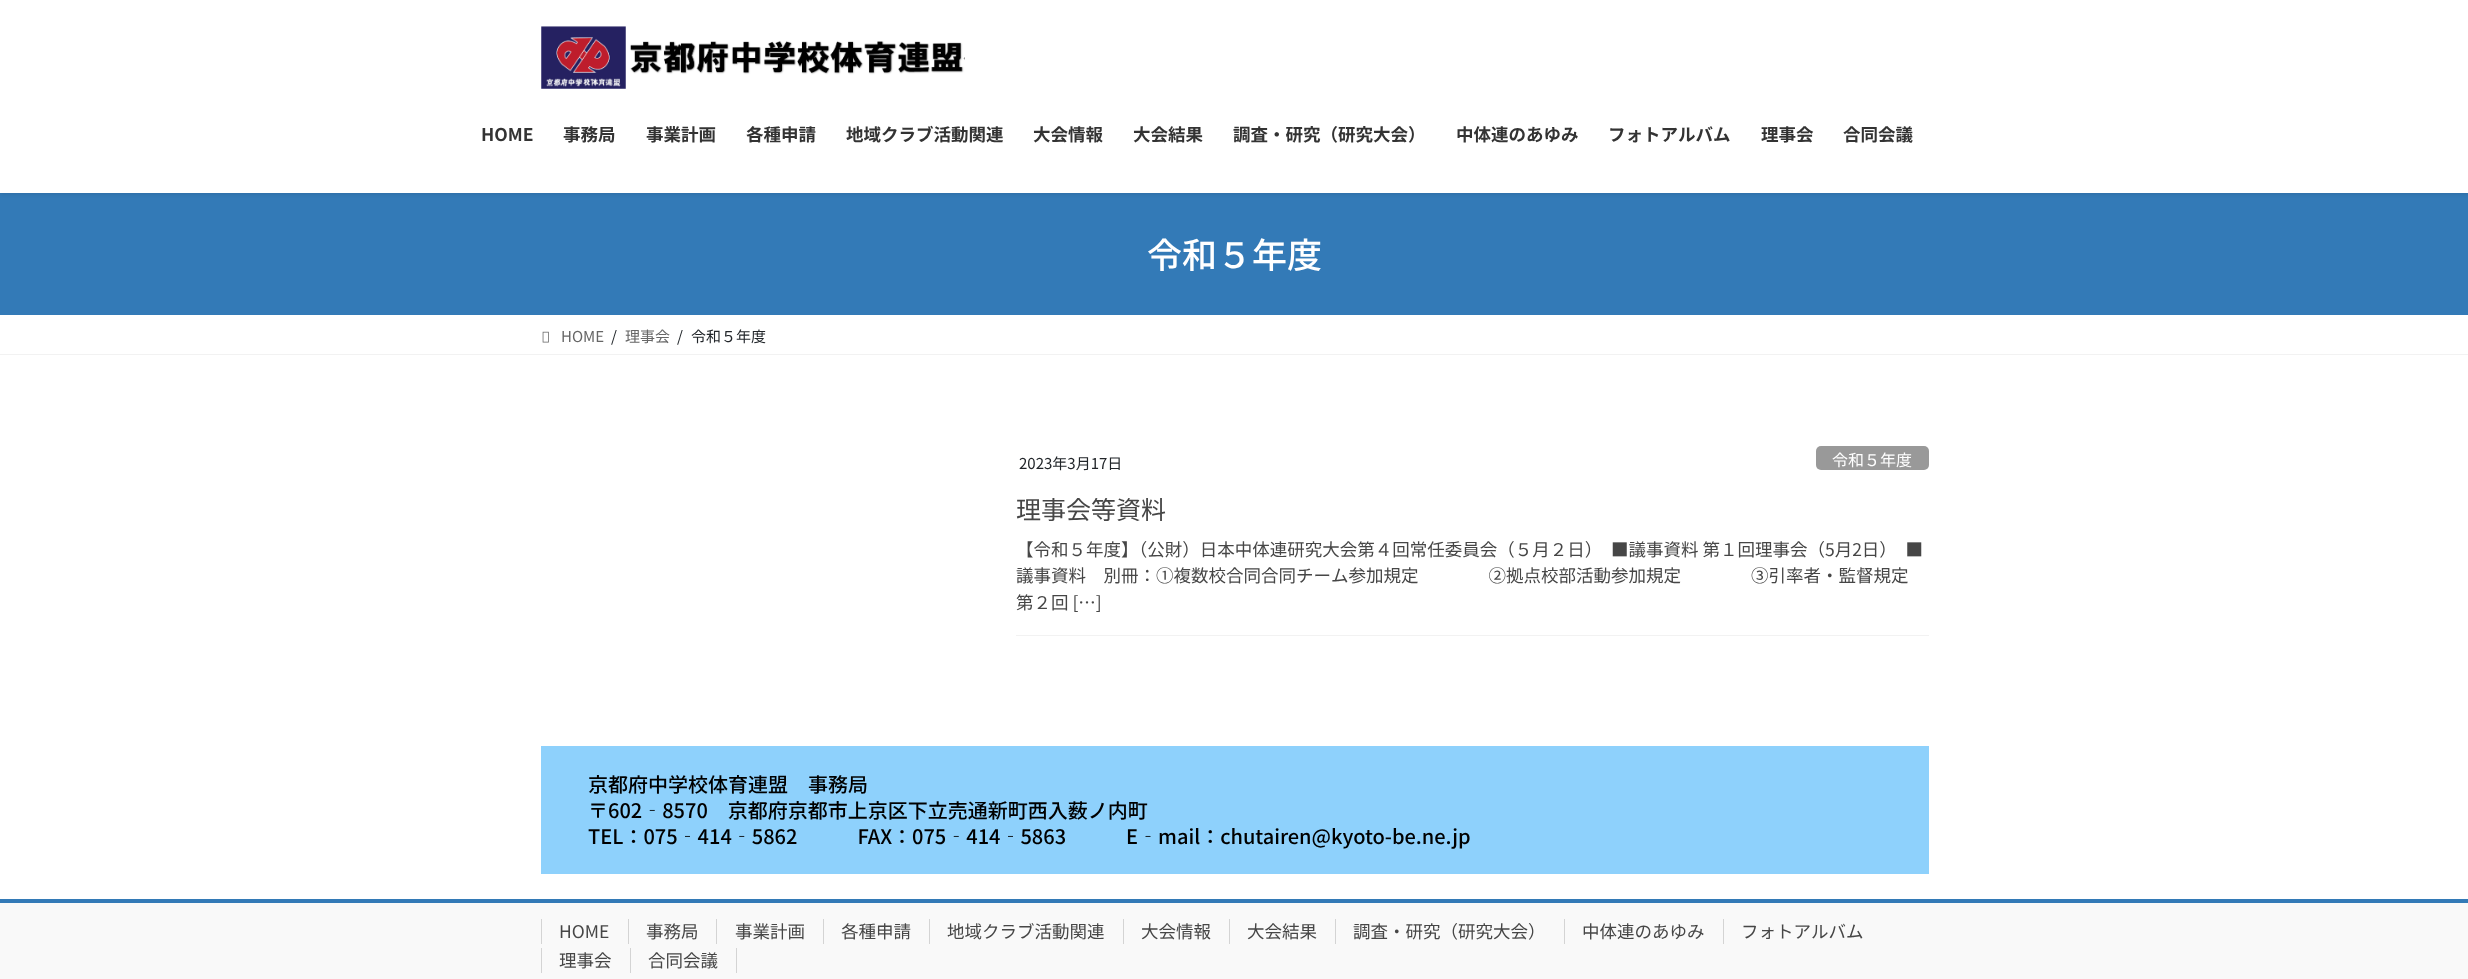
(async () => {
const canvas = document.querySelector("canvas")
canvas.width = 2468
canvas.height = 979
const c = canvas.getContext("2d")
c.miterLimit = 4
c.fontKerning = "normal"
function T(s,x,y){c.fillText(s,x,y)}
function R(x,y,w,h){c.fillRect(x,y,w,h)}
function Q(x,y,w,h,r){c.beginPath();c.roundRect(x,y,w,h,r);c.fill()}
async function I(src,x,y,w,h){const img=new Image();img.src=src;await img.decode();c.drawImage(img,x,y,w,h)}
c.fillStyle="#fff"
R(0,0,2468,979)
c.fillStyle="#337ab7"
R(0,193,2468,122)
c.fillStyle="#0000001a"
c.filter="blur(2px)"
c.beginPath()
c.rect(0,1,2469,193)
c.fill()
c.filter="none"
c.fillStyle="#fff"
R(0,0,2468,193)
await I("1.png",541,26,424,63)
c.font="bold 17.5px Noto Sans JP"
c.fillStyle="#333"
T("HOME",481,141)
T("事務局",563,141)
T("事業計画",646,141)
T("各種申請",746,141)
T("地域クラブ活動関連",846,141)
T("大会情報",1033,141)
T("大会結果",1133,141)
T("調査・研究（研究大会）",1233,141)
T("中体連のあゆみ",1456,141)
T("フォトアルバム",1608,141)
T("理事会",1761,141)
T("合同会議",1843,141)
c.font="500 35px Noto Sans JP"
c.fillStyle="#fff"
T("令和５年度",1147,268)
c.fillStyle="#f2f2f2"
R(0,354,2468,1)
await I("2.png",542,331,7,12)
c.font="15px Noto Sans JP"
c.fillStyle="#666"
T("HOME",561,342)
c.fillStyle="#212529"
T("/",611,342)
c.fillStyle="#666"
T("理事会",625,342)
c.fillStyle="#212529"
T("/",677,342)
T("令和５年度",691,342)
c.fillStyle="#f2f2f2"
R(1016,635,913,1)
c.fillStyle="#212529"
T("2023年3月17日",1019,469)
c.fillStyle="#999"
Q(1816,446,113,24,5)
c.font="16px Noto Sans JP"
c.fillStyle="#fff"
T("令和５年度",1832,466)
c.font="25px Noto Sans JP"
c.fillStyle="#464646"
T("理事会等資料",1016,519)
c.font="17.5px Noto Sans JP"
T("【令和５年度】（公財）日本中体連研究大会第４回常任委員会（５月２日）　■議事資料 第１回理事会（5月2日）　■",1016,556)
T("議事資料　別冊：①複数校合同合同チーム参加規定　　　　②拠点校部活動参加規定　　　　③引率者・監督規定",1016,582)
T("第２回 […]",1016,609)
c.fillStyle="#8ed1fc"
R(541,746,1388,128)
c.font="500 20px Noto Sans JP"
c.fillStyle="#000"
T("京都府中学校体育連盟　事務局",588,792)
T("〒602‐8570　京都府京都市上京区下立売通新町西入薮ノ内町",588,818)
T("TEL：075‐414‐5862　　　FAX：075‐414‐5863　　　E‐mail：chutairen@kyoto-be.ne.jp",588,844)
c.fillStyle="#f9f9f9"
R(0,903,2468,76)
c.fillStyle="#337ab7"
R(0,899,2468,4)
c.font="17.5px Noto Sans JP"
c.fillStyle="#464646"
T("HOME",559,938)
c.fillStyle="#d4d4d4"
R(541,919,1,25)
c.fillStyle="#464646"
T("事務局",646,938)
c.fillStyle="#d4d4d4"
R(628,919,1,25)
c.fillStyle="#464646"
T("事業計画",735,938)
c.fillStyle="#d4d4d4"
R(716,919,1,25)
c.fillStyle="#464646"
T("各種申請",841,938)
c.fillStyle="#d4d4d4"
R(823,919,1,25)
c.fillStyle="#464646"
T("地域クラブ活動関連",947,938)
c.fillStyle="#d4d4d4"
R(929,919,1,25)
c.fillStyle="#464646"
T("大会情報",1141,938)
c.fillStyle="#d4d4d4"
R(1123,919,1,25)
c.fillStyle="#464646"
T("大会結果",1247,938)
c.fillStyle="#d4d4d4"
R(1229,919,1,25)
c.fillStyle="#464646"
T("調査・研究（研究大会）",1353,938)
c.fillStyle="#d4d4d4"
R(1335,919,1,25)
c.fillStyle="#464646"
T("中体連のあゆみ",1582,938)
c.fillStyle="#d4d4d4"
R(1564,919,1,25)
c.fillStyle="#464646"
T("フォトアルバム",1741,938)
c.fillStyle="#d4d4d4"
R(1723,919,1,25)
c.fillStyle="#464646"
T("理事会",559,967)
c.fillStyle="#d4d4d4"
R(541,948,1,25)
c.fillStyle="#464646"
T("合同会議",648,967)
c.fillStyle="#d4d4d4"
R(736,948,1,25)
R(630,948,1,25)
})()
